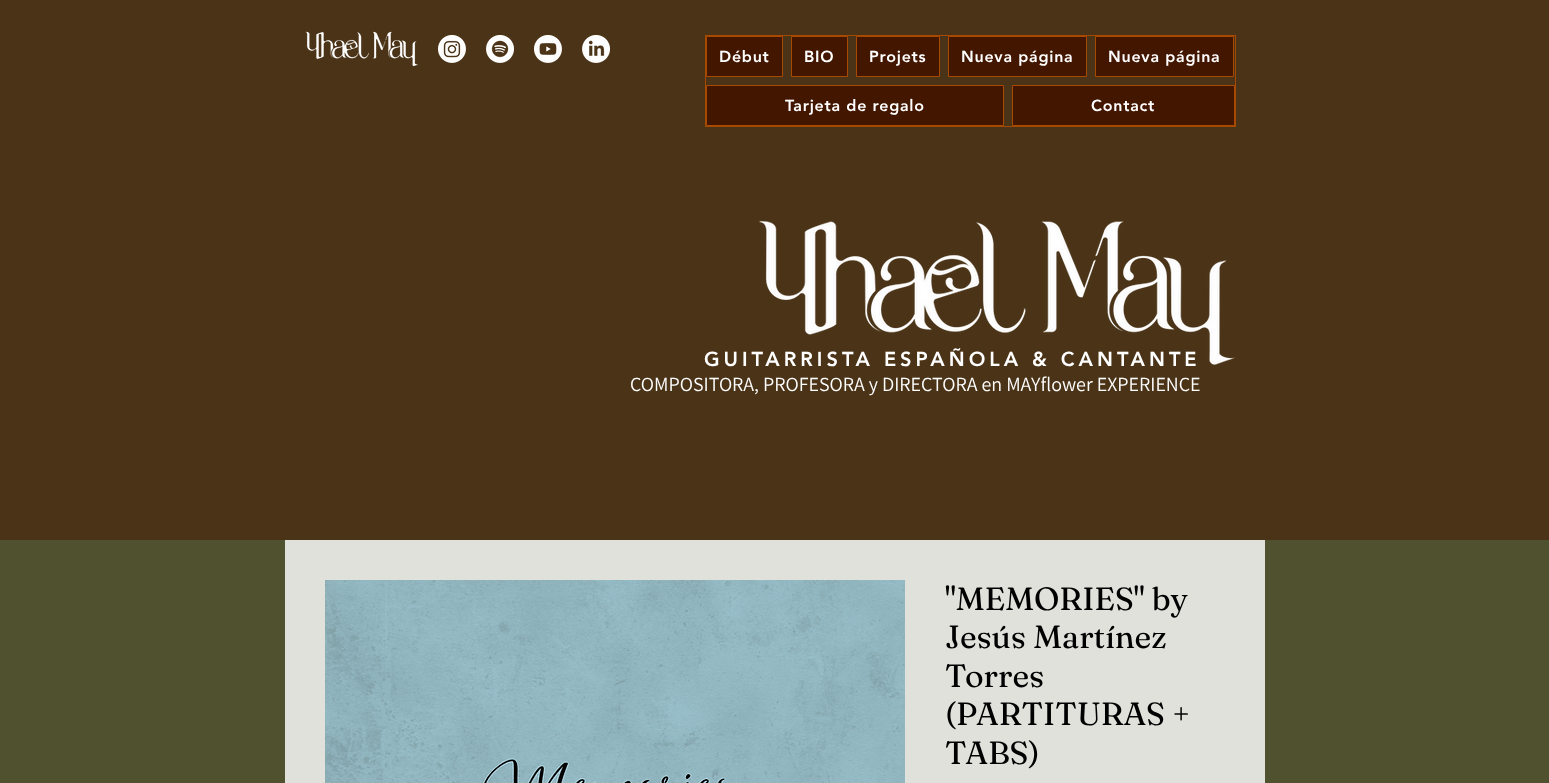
(async () => {
const canvas = document.querySelector("canvas")
canvas.width = 1549
canvas.height = 783
const c = canvas.getContext("2d")
c.miterLimit = 4
c.fontKerning = "normal"
function T(s,x,y){c.fillText(s,x,y)}
function R(x,y,w,h){c.fillRect(x,y,w,h)}
async function I(src,x,y,w,h){const img=new Image();img.src=src;await img.decode();c.drawImage(img,x,y,w,h)}
c.fillStyle="#50512e"
R(0,0,1549,783)
c.fillStyle="#4a3317"
R(0,0,1549,540)
await I("1.png",305,31,114,36)
await I("2.png",438,35,28,28)
await I("3.png",486,35,28,28)
await I("4.png",534,35,28,28)
await I("5.png",582,35,28,28)
c.strokeStyle="#a74a00"
c.strokeRect(705.5,35.5,530,91)
c.fillStyle="#431600"
c.beginPath()
c.rect(706.5,36.5,76,40)
c.fill()
c.stroke()
c.letterSpacing="0.75px"
c.font="900 16px 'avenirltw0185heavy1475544'"
c.fillStyle="#fff"
T("Début",719,62)
c.fillStyle="#431600"
c.beginPath()
c.rect(791.5,36.5,56,40)
c.fill()
c.stroke()
c.fillStyle="#fff"
T("BIO",804,62)
c.fillStyle="#431600"
c.beginPath()
c.rect(856.5,36.5,83,40)
c.fill()
c.stroke()
c.fillStyle="#fff"
T("Projets",869,62)
c.fillStyle="#431600"
c.beginPath()
c.rect(948.5,36.5,138,40)
c.fill()
c.stroke()
c.fillStyle="#fff"
T("Nueva página",961,62)
c.fillStyle="#431600"
c.beginPath()
c.rect(1095.5,36.5,138,40)
c.fill()
c.stroke()
c.fillStyle="#fff"
T("Nueva página",1108,62)
c.fillStyle="#431600"
c.beginPath()
c.rect(706.5,85.5,297,40)
c.fill()
c.stroke()
c.fillStyle="#fff"
T("Tarjeta de regalo",785,111)
c.fillStyle="#431600"
c.beginPath()
c.rect(1012.5,85.5,222,40)
c.fill()
c.stroke()
c.fillStyle="#fff"
T("Contact",1091,111)
await I("6.png",759,220,476,145)
c.letterSpacing="4px"
c.font="900 20px 'avenirltw0185heavy1475544'"
T("GUITARRISTA ESPAÑOLA & CANTANTE",704,366)
c.letterSpacing="0px"
c.font="20px Assistant"
T("COMPOSITORA, PROFESORA y DIRECTORA en MAYflower EXPERIENCE",630,391)
c.fillStyle="#e1e1db"
R(285,540,980,243)
await I("7.png",325,580,580,203)
c.font="32px Fraunces"
c.fillStyle="#000"
T("\"MEMORIES\" by",945,610)
T("Jesús Martínez",945,648)
T("Torres",945,687)
T("(PARTITURAS +",945,725)
T("TABS)",945,764)
})()
